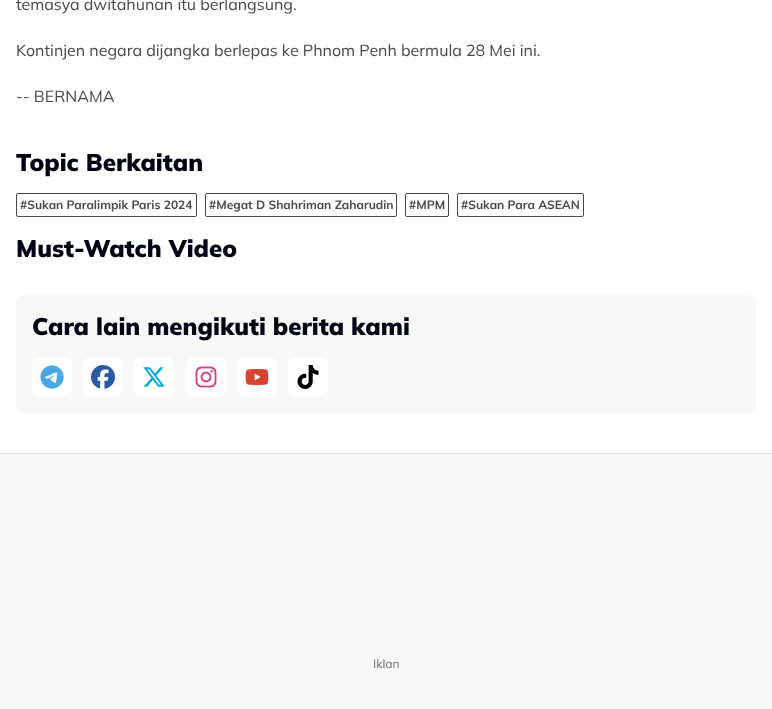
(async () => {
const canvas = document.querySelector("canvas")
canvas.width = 772
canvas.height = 709
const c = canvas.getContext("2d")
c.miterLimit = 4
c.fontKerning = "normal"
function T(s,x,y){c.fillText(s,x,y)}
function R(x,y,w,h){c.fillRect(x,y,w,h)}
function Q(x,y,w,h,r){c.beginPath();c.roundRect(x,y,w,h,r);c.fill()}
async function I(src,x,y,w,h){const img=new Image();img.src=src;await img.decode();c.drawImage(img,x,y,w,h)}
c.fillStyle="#f8f8f9"
R(0,0,772,709)
c.fillStyle="#fff"
R(0,0,772,453)
c.font="16px Mulish"
c.fillStyle="#484849"
T("temasya dwitahunan itu berlangsung.",16,10)
T("Kontinjen negara dijangka berlepas ke Phnom Penh bermula 28 Mei ini.",16,56)
T("-- BERNAMA",16,102)
c.font="900 24px Mulish"
c.fillStyle="#010414"
T("Topic Berkaitan",16,171)
c.beginPath()
c.roundRect(16.5,193.5,180,23,1.5)
c.strokeStyle="#484849"
c.stroke()
c.font="bold 12px Mulish"
c.fillStyle="#484849"
T("#Sukan Paralimpik Paris 2024",20,209)
c.beginPath()
c.roundRect(205.5,193.5,191,23,1.5)
c.stroke()
T("#Megat D Shahriman Zaharudin",209,209)
c.beginPath()
c.roundRect(405.5,193.5,43,23,1.5)
c.stroke()
T("#MPM",409,209)
c.beginPath()
c.roundRect(457.5,193.5,126,23,1.5)
c.stroke()
T("#Sukan Para ASEAN",461,209)
c.font="900 24px Mulish"
c.fillStyle="#010414"
T("Must-Watch Video",16,257)
c.fillStyle="#f8f8f9"
Q(16,295,740,118,8)
c.fillStyle="#010414"
T("Cara lain mengikuti berita kami",32,335)
c.fillStyle="#fff"
Q(32,357,40,40,8)
await I("1.png",40,365,24,24)
Q(83,357,40,40,8)
await I("2.png",91,365,24,24)
Q(134,357,40,40,8)
await I("3.png",143,367,22,20)
Q(186,357,40,40,8)
await I("4.png",195,366,22,22)
Q(237,357,40,40,8)
await I("5.png",245,369,24,16)
Q(288,357,40,40,8)
await I("6.png",297,365,22,24)
c.fillStyle="#dedee0"
R(0,453,772,1)
c.font="500 12px Mulish"
c.fillStyle="#78787a"
T("Iklan",373,668)
})()
